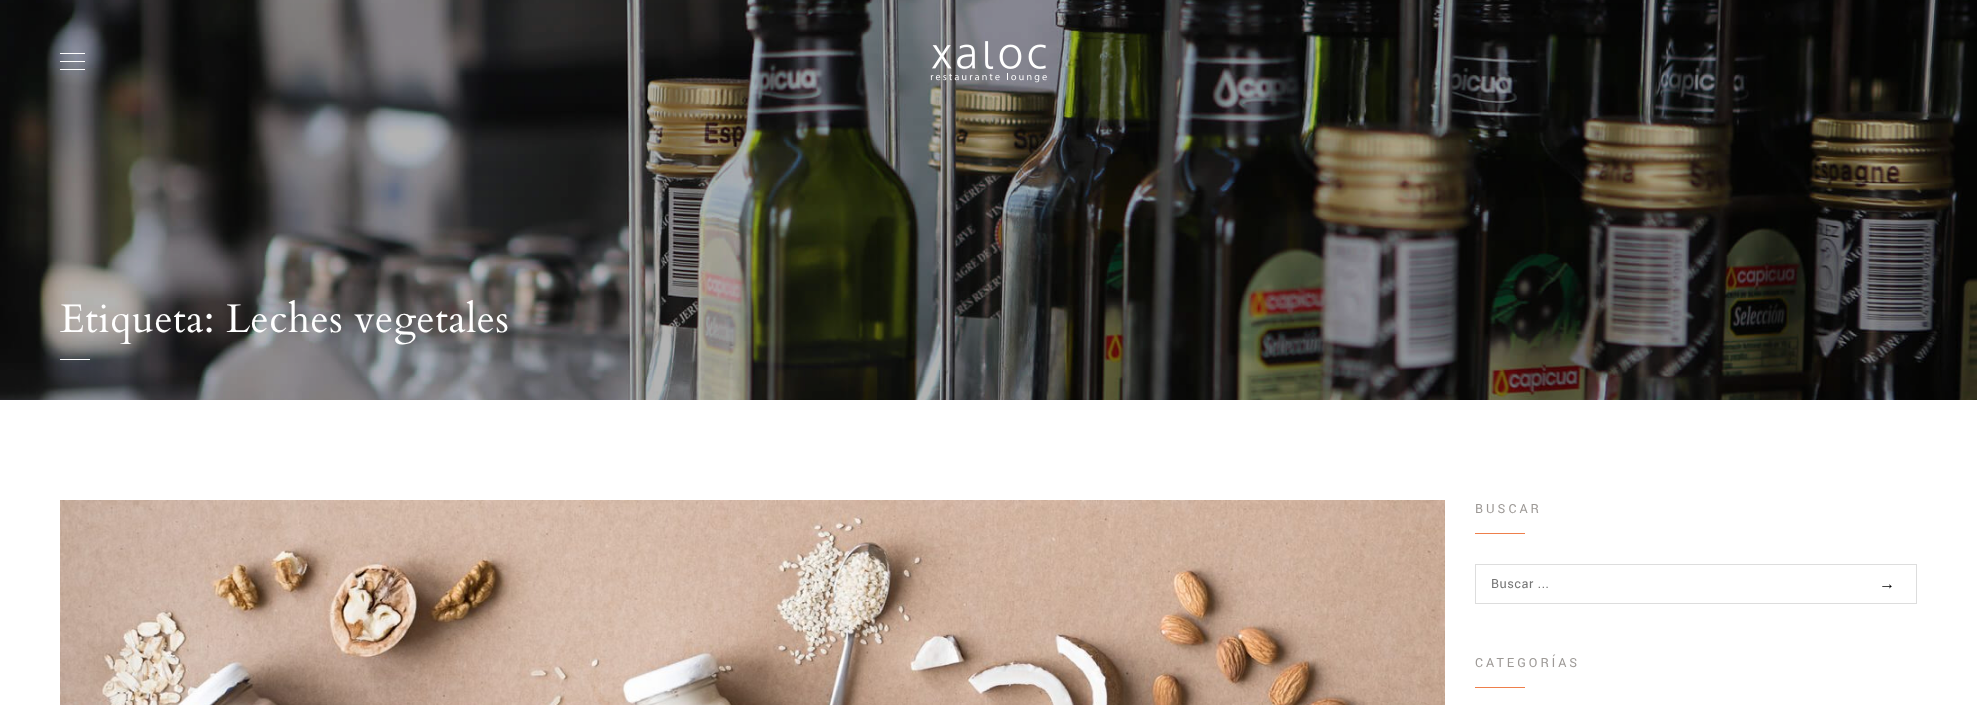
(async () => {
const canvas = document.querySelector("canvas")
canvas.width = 1977
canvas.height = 705
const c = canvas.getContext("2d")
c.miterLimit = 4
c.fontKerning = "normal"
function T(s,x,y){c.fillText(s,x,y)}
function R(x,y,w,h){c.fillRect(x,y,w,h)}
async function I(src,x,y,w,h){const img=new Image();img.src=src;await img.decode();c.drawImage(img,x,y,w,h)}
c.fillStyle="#fff"
R(0,0,1977,705)
await I("2.png",0,0,1977,400)
R(60,53,25,1)
R(60,61,25,1)
R(60,69,25,1)
await I("1.png",930,41,117,42)
c.letterSpacing="0.5px"
c.font="40px Cardo"
T("Etiqueta: Leches vegetales",60,332)
R(60,359,30,1)
await I("3.png",60,500,1385,205)
c.letterSpacing="3px"
c.font="14px Yantramanav"
c.fillStyle="#9d9996"
T("BUSCAR",1475,513)
c.fillStyle="#ee7f4b"
R(1475,533,50,1)
c.strokeStyle="#ddd"
c.strokeRect(1475.5,564.5,441,39)
c.letterSpacing="0.5px"
c.fillStyle="#757575"
T("Buscar ...",1491,588)
c.letterSpacing="0px"
c.font="16px Liberation Serif"
c.fillStyle="#000"
T("→",1879,589)
c.letterSpacing="3px"
c.font="14px Yantramanav"
c.fillStyle="#9d9996"
T("CATEGORÍAS",1475,667)
c.fillStyle="#ee7f4b"
R(1475,687,50,1)
})()
